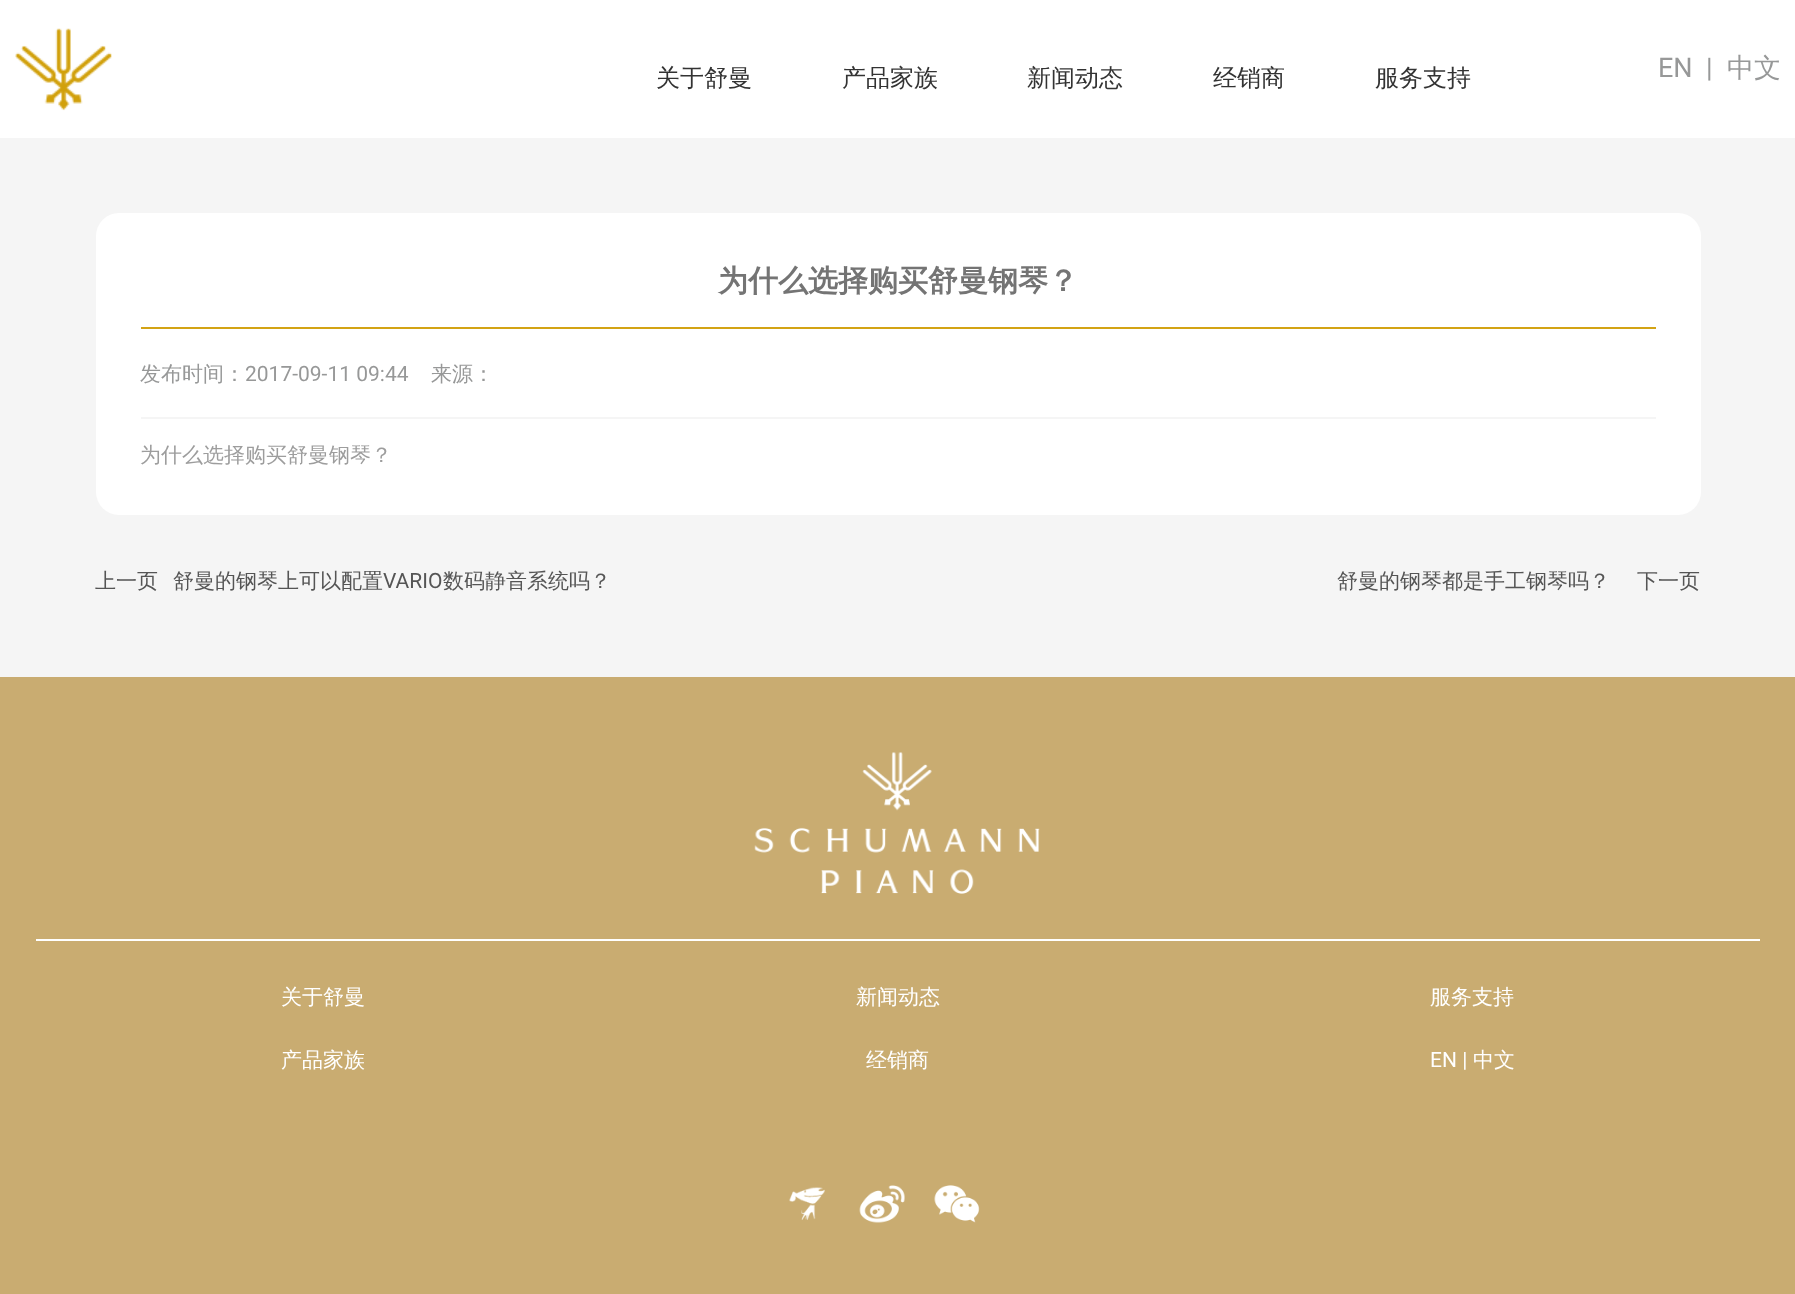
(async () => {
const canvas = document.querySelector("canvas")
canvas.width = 1795
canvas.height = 1294
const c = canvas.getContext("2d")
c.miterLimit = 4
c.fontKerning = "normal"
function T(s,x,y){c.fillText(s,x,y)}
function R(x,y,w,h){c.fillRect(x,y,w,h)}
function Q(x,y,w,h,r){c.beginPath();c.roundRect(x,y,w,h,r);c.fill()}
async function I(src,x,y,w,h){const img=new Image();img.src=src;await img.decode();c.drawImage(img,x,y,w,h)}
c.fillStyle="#fff"
R(0,0,1795,1294)
await I("1.png",15,28,97,83)
c.font="500 24px WenQuanYi Zen Hei"
c.fillStyle="#333"
T("关于舒曼",656,86)
T("产品家族",842,86)
T("新闻动态",1027,86)
T("经销商",1213,86)
T("服务支持",1375,86)
c.font="27px Roboto"
c.fillStyle="#979898"
T("EN",1658,77)
T("|",1706,77)
c.font="500 27px WenQuanYi Zen Hei"
T("中文",1727,77)
c.fillStyle="#f5f5f5"
R(0,138,1795,539)
c.fillStyle="#fff"
Q(96,213,1605,302,23)
c.font="bold 30px WenQuanYi Zen Hei"
c.fillStyle="#747474"
T("为什么选择购买舒曼钢琴？",718,291)
c.fillStyle="#d3a314"
R(141,327,1515,2)
c.font="500 21px WenQuanYi Zen Hei"
c.fillStyle="#979898"
T("发布时间：",140,381)
c.font="21px Roboto"
T("2017-09-11 09:44",245,381)
c.font="500 21px WenQuanYi Zen Hei"
T("来源：",431,381)
c.fillStyle="#f5f5f5"
R(141,417,1515,2)
c.fillStyle="#9d9d9d"
T("为什么选择购买舒曼钢琴？",140,462)
c.fillStyle="#555"
T("上一页",95,588)
T("舒曼的钢琴上可以配置",173,588)
c.font="21px Roboto"
T("VARIO",383,588)
c.font="500 21px WenQuanYi Zen Hei"
T("数码静音系统吗？",443,588)
T("舒曼的钢琴都是手工钢琴吗？",1337,588)
T("下一页",1637,588)
c.fillStyle="#c9ac71"
R(0,677,1795,617)
await I("2.png",754,752,286,142)
c.fillStyle="#fff"
R(36,939,1724,2)
T("关于舒曼",281,1004)
T("产品家族",281,1067)
T("新闻动态",856,1004)
T("经销商",866,1067)
T("服务支持",1430,1004)
c.font="21px Roboto"
T("EN |",1430,1067)
c.font="500 21px WenQuanYi Zen Hei"
T("中文",1473,1067)
await I("3.png",789,1187,36,33)
await I("4.png",859,1185,46,38)
await I("5.png",934,1185,46,38)
})()
